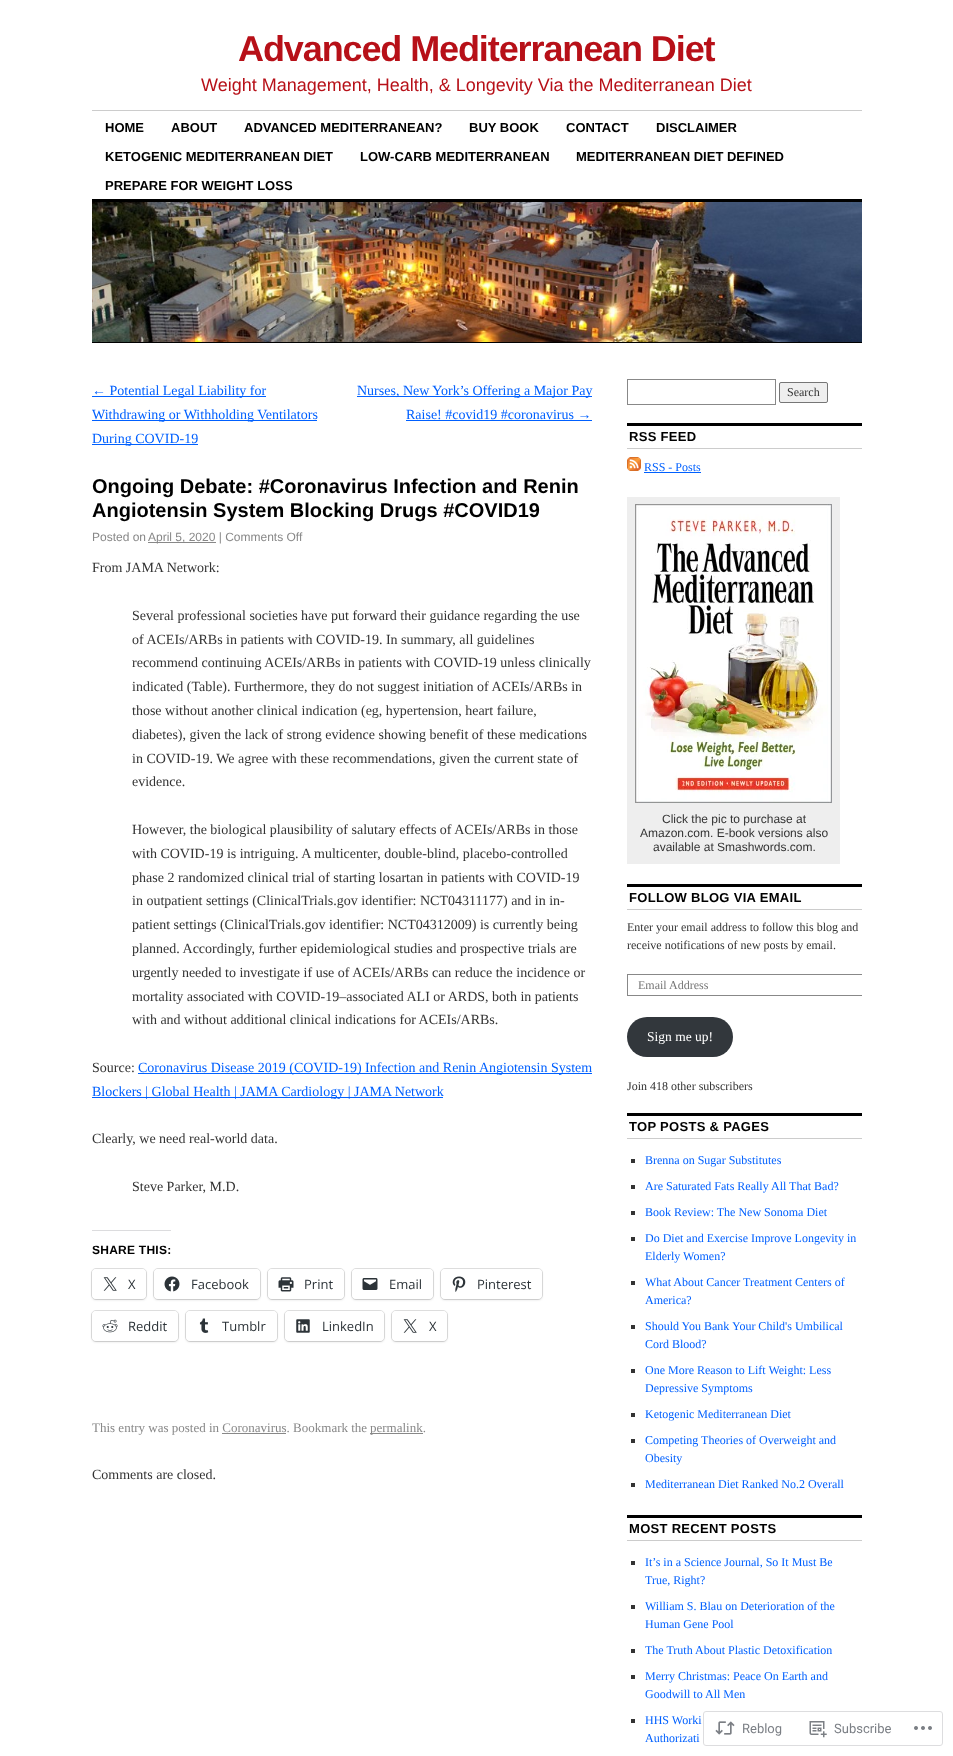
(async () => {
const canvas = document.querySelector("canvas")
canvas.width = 953
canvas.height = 1756
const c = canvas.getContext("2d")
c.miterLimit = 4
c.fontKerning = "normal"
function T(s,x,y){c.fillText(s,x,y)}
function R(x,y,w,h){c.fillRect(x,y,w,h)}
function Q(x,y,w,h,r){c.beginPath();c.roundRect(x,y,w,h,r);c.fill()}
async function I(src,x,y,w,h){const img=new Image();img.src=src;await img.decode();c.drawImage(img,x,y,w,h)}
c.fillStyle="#fff"
R(0,0,953,1756)
c.letterSpacing="-1.1px"
c.font="bold 36px Liberation Sans"
c.fillStyle="#b71018"
T("Advanced Mediterranean Diet",238,61)
c.letterSpacing="0px"
c.font="18px Liberation Sans"
T("Weight Management, Health, & Longevity Via the Mediterranean Diet",201,91)
c.fillStyle="#ccc"
R(92,110,770,1)
c.font="bold 13px Liberation Sans"
c.fillStyle="#000"
T("HOME",105,132)
T("ABOUT",171,132)
T("ADVANCED MEDITERRANEAN?",244,132)
T("BUY BOOK",469,132)
T("CONTACT",566,132)
T("DISCLAIMER",656,132)
T("KETOGENIC MEDITERRANEAN DIET",105,161)
T("LOW-CARB MEDITERRANEAN",360,161)
T("MEDITERRANEAN DIET DEFINED",576,161)
T("PREPARE FOR WEIGHT LOSS",105,190)
R(92,199,770,3)
await I("1.png",92,202,770,140)
R(92,342,770,1)
c.fillStyle="#0060ff"
R(92,396,174,1)
c.font="14px Liberation Serif"
T("← Potential Legal Liability for",92,395)
R(92,420,225,1)
T("Withdrawing or Withholding Ventilators",92,419)
R(92,444,106,1)
T("During COVID-19",92,443)
R(357,396,235,1)
T("Nurses, New York’s Offering a Major Pay",357,395)
T("Raise! #covid19 #coronavirus →",406,419)
R(406,420,186,1)
c.font="bold 20px Liberation Sans"
c.fillStyle="#000"
T("Ongoing Debate: #Coronavirus Infection and Renin",92,493)
T("Angiotensin System Blocking Drugs #COVID19",92,517)
c.font="12px Liberation Sans"
c.fillStyle="#888"
T("Posted on",92,541)
R(148,542,68,1)
T("April 5, 2020 | Comments Off",148,541)
c.font="14px Liberation Serif"
c.fillStyle="#333"
T("From JAMA Network:",92,572)
T("Several professional societies have put forward their guidance regarding the use",132,620)
T("of ACEIs/ARBs in patients with COVID-19. In summary, all guidelines",132,644)
T("recommend continuing ACEIs/ARBs in patients with COVID-19 unless clinically",132,667)
T("indicated (Table). Furthermore, they do not suggest initiation of ACEIs/ARBs in",132,691)
T("those without another clinical indication (eg, hypertension, heart failure,",132,715)
T("diabetes), given the lack of strong evidence showing benefit of these medications",132,739)
T("in COVID-19. We agree with these recommendations, given the current state of",132,763)
T("evidence.",132,786)
T("However, the biological plausibility of salutary effects of ACEIs/ARBs in those",132,834)
T("with COVID-19 is intriguing. A multicenter, double-blind, placebo-controlled",132,858)
T("phase 2 randomized clinical trial of starting losartan in patients with COVID-19",132,882)
T("in outpatient settings (ClinicalTrials.gov identifier: NCT04311177) and in in-",132,905)
T("patient settings (ClinicalTrials.gov identifier: NCT04312009) is currently being",132,929)
T("planned. Accordingly, further epidemiological studies and prospective trials are",132,953)
T("urgently needed to investigate if use of ACEIs/ARBs can reduce the incidence or",132,977)
T("mortality associated with COVID-19–associated ALI or ARDS, both in patients",132,1001)
T("with and without additional clinical indications for ACEIs/ARBs.",132,1024)
T("Source:",92,1072)
c.fillStyle="#0060ff"
R(138,1073,454,1)
T("Coronavirus Disease 2019 (COVID-19) Infection and Renin Angiotensin System",138,1072)
R(92,1097,351,1)
T("Blockers | Global Health | JAMA Cardiology | JAMA Network",92,1096)
c.fillStyle="#333"
T("Clearly, we need real-world data.",92,1143)
T("Steve Parker, M.D.",132,1191)
c.fillStyle="#dcdcde"
R(92,1230,79,1)
c.letterSpacing="0.25px"
c.font="bold 12px Liberation Sans"
c.fillStyle="#000"
T("SHARE THIS:",92,1254)
c.beginPath()
c.roundRect(91.5,1268.5,55,31,4.5)
c.strokeStyle="#e0e0e0"
c.stroke()
c.fillStyle="#0000001f"
c.filter="blur(1px)"
c.beginPath()
c.roundRect(92,1270,54,30,4)
c.fill()
c.filter="none"
c.fillStyle="#fff"
Q(92,1269,54,30,4)
await I("2.png",103,1277,14,14)
c.letterSpacing="0px"
c.font="13px Open Sans"
c.fillStyle="#2c3338"
T("X",128,1289)
c.beginPath()
c.roundRect(153.5,1268.5,107,31,4.5)
c.stroke()
c.fillStyle="#0000001f"
c.filter="blur(1px)"
c.beginPath()
c.roundRect(154,1270,106,30,4)
c.fill()
c.filter="none"
c.fillStyle="#fff"
Q(154,1269,106,30,4)
await I("3.png",164,1276,16,16)
c.fillStyle="#2c3338"
T("Facebook",191,1289)
c.beginPath()
c.roundRect(267.5,1268.5,77,31,4.5)
c.stroke()
c.fillStyle="#0000001f"
c.filter="blur(1px)"
c.beginPath()
c.roundRect(268,1270,76,30,4)
c.fill()
c.filter="none"
c.fillStyle="#fff"
Q(268,1269,76,30,4)
await I("4.png",278,1277,16,15)
c.fillStyle="#2c3338"
T("Print",304,1289)
c.beginPath()
c.roundRect(351.5,1268.5,82,31,4.5)
c.stroke()
c.fillStyle="#0000001f"
c.filter="blur(1px)"
c.beginPath()
c.roundRect(352,1270,81,30,4)
c.fill()
c.filter="none"
c.fillStyle="#fff"
Q(352,1269,81,30,4)
await I("5.png",362,1278,16,12)
c.fillStyle="#2c3338"
T("Email",389,1289)
c.beginPath()
c.roundRect(440.5,1268.5,102,31,4.5)
c.stroke()
c.fillStyle="#0000001f"
c.filter="blur(1px)"
c.beginPath()
c.roundRect(441,1270,101,30,4)
c.fill()
c.filter="none"
c.fillStyle="#fff"
Q(441,1269,101,30,4)
await I("6.png",452,1276,14,16)
c.fillStyle="#2c3338"
T("Pinterest",477,1289)
c.beginPath()
c.roundRect(91.5,1310.5,87,31,4.5)
c.stroke()
c.fillStyle="#0000001f"
c.filter="blur(1px)"
c.beginPath()
c.roundRect(92,1312,86,30,4)
c.fill()
c.filter="none"
c.fillStyle="#fff"
Q(92,1311,86,30,4)
await I("7.png",102,1319,16,14)
c.fillStyle="#2c3338"
T("Reddit",128,1331)
c.beginPath()
c.roundRect(185.5,1310.5,92,31,4.5)
c.stroke()
c.fillStyle="#0000001f"
c.filter="blur(1px)"
c.beginPath()
c.roundRect(186,1312,91,30,4)
c.fill()
c.filter="none"
c.fillStyle="#fff"
Q(186,1311,91,30,4)
await I("8.png",199,1318,10,15)
c.fillStyle="#2c3338"
T("Tumblr",222,1331)
c.beginPath()
c.roundRect(284.5,1310.5,100,31,4.5)
c.stroke()
c.fillStyle="#0000001f"
c.filter="blur(1px)"
c.beginPath()
c.roundRect(285,1312,99,30,4)
c.fill()
c.filter="none"
c.fillStyle="#fff"
Q(285,1311,99,30,4)
await I("9.png",296,1319,14,14)
c.fillStyle="#2c3338"
T("LinkedIn",322,1331)
c.beginPath()
c.roundRect(391.5,1310.5,56,31,4.5)
c.stroke()
c.fillStyle="#0000001f"
c.filter="blur(1px)"
c.beginPath()
c.roundRect(392,1312,55,30,4)
c.fill()
c.filter="none"
c.fillStyle="#fff"
Q(392,1311,55,30,4)
await I("2.png",403,1319,14,14)
c.fillStyle="#2c3338"
T("X",429,1331)
c.font="13px Liberation Serif"
c.fillStyle="#888"
T("This entry was posted in Coronavirus. Bookmark the",92,1432)
R(370,1433,53,1)
T("permalink.",370,1432)
R(222,1433,64,1)
c.font="14px Liberation Serif"
c.fillStyle="#333"
T("Comments are closed.",92,1479)
c.strokeStyle="#888"
c.strokeRect(627.5,379.5,148,25)
c.fillStyle="#efefef"
c.beginPath()
c.roundRect(779.5,382.5,48,20,1.5)
c.fill()
c.strokeStyle="#767676"
c.stroke()
c.font="12px Liberation Serif"
c.fillStyle="#333"
T("Search",787,396)
c.fillStyle="#000"
R(627,423,235,3)
c.fillStyle="#ccc"
R(627,448,235,1)
c.letterSpacing="0.3px"
c.font="bold 13px Liberation Sans"
c.fillStyle="#000"
T("RSS FEED",629,441)
await I("10.png",627,457,14,14)
c.letterSpacing="0px"
c.font="12px Liberation Serif"
c.fillStyle="#0060ff"
T("RSS - Posts",644,471)
R(644,472,57,1)
c.fillStyle="#eee"
R(627,497,213,367)
await I("11.png",635,504,197,299)
c.font="12px Liberation Sans"
c.fillStyle="#333"
T("Click the pic to purchase at",662,823)
T("Amazon.com. E-book versions also",640,837)
T("available at Smashwords.com.",653,851)
c.fillStyle="#000"
R(627,884,235,3)
c.fillStyle="#ccc"
R(627,909,235,1)
c.letterSpacing="0.3px"
c.font="bold 13px Liberation Sans"
c.fillStyle="#000"
T("FOLLOW BLOG VIA EMAIL",629,902)
c.letterSpacing="0px"
c.font="12px Liberation Serif"
c.fillStyle="#333"
T("Enter your email address to follow this blog and",627,931)
T("receive notifications of new posts by email.",627,949)
c.save()
c.beginPath()
c.rect(627,379,235,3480)
c.clip()
c.strokeStyle="#888"
c.strokeRect(627.5,974.5,244,21)
c.restore()
c.fillStyle="#757575"
T("Email Address",638,989)
c.fillStyle="#32373c"
Q(627,1017,106,40,20)
c.font="13.5px Liberation Serif"
c.fillStyle="#fff"
T("Sign me up!",647,1041)
c.font="12px Liberation Serif"
c.fillStyle="#333"
T("Join 418 other subscribers",627,1090)
c.fillStyle="#000"
R(627,1113,235,3)
c.fillStyle="#ccc"
R(627,1138,235,1)
c.letterSpacing="0.3px"
c.font="bold 13px Liberation Sans"
c.fillStyle="#000"
T("TOP POSTS & PAGES",629,1131)
c.fillStyle="#333"
R(631,1159,4,4)
c.letterSpacing="0px"
c.font="12px Liberation Serif"
c.fillStyle="#0060ff"
T("Brenna on Sugar Substitutes",645,1164)
c.fillStyle="#333"
R(631,1185,4,4)
c.fillStyle="#0060ff"
T("Are Saturated Fats Really All That Bad?",645,1190)
c.fillStyle="#333"
R(631,1211,4,4)
c.fillStyle="#0060ff"
T("Book Review: The New Sonoma Diet",645,1216)
c.fillStyle="#333"
R(631,1237,4,4)
c.fillStyle="#0060ff"
T("Do Diet and Exercise Improve Longevity in",645,1242)
T("Elderly Women?",645,1260)
c.fillStyle="#333"
R(631,1281,4,4)
c.fillStyle="#0060ff"
T("What About Cancer Treatment Centers of",645,1286)
T("America?",645,1304)
c.fillStyle="#333"
R(631,1325,4,4)
c.fillStyle="#0060ff"
T("Should You Bank Your Child's Umbilical",645,1330)
T("Cord Blood?",645,1348)
c.fillStyle="#333"
R(631,1369,4,4)
c.fillStyle="#0060ff"
T("One More Reason to Lift Weight: Less",645,1374)
T("Depressive Symptoms",645,1392)
c.fillStyle="#333"
R(631,1413,4,4)
c.fillStyle="#0060ff"
T("Ketogenic Mediterranean Diet",645,1418)
c.fillStyle="#333"
R(631,1439,4,4)
c.fillStyle="#0060ff"
T("Competing Theories of Overweight and",645,1444)
T("Obesity",645,1462)
c.fillStyle="#333"
R(631,1483,4,4)
c.fillStyle="#0060ff"
T("Mediterranean Diet Ranked No.2 Overall",645,1488)
c.fillStyle="#000"
R(627,1515,235,3)
c.fillStyle="#ccc"
R(627,1540,235,1)
c.letterSpacing="0.3px"
c.font="bold 13px Liberation Sans"
c.fillStyle="#000"
T("MOST RECENT POSTS",629,1533)
c.fillStyle="#333"
R(631,1561,4,4)
c.letterSpacing="0px"
c.font="12px Liberation Serif"
c.fillStyle="#0060ff"
T("It’s in a Science Journal, So It Must Be",645,1566)
T("True, Right?",645,1584)
c.fillStyle="#333"
R(631,1605,4,4)
c.fillStyle="#0060ff"
T("William S. Blau on Deterioration of the",645,1610)
T("Human Gene Pool",645,1628)
c.fillStyle="#333"
R(631,1649,4,4)
c.fillStyle="#0060ff"
T("The Truth About Plastic Detoxification",645,1654)
c.fillStyle="#333"
R(631,1675,4,4)
c.fillStyle="#0060ff"
T("Merry Christmas: Peace On Earth and",645,1680)
T("Goodwill to All Men",645,1698)
c.fillStyle="#333"
R(631,1719,4,4)
c.fillStyle="#0060ff"
T("HHS Worki",645,1724)
T("Authorizati",645,1742)
c.beginPath()
c.roundRect(703.5,1711.5,239,34,2.5)
c.strokeStyle="#dcdcdefa"
c.stroke()
await I("12.png",715,1721,20,14)
c.font="13px Roboto"
c.fillStyle="#7b7f85"
T("Reblog",742,1733)
await I("13.png",809,1721,18,17)
T("Subscribe",834,1733)
await I("14.png",914,1726,18,4)
})()
